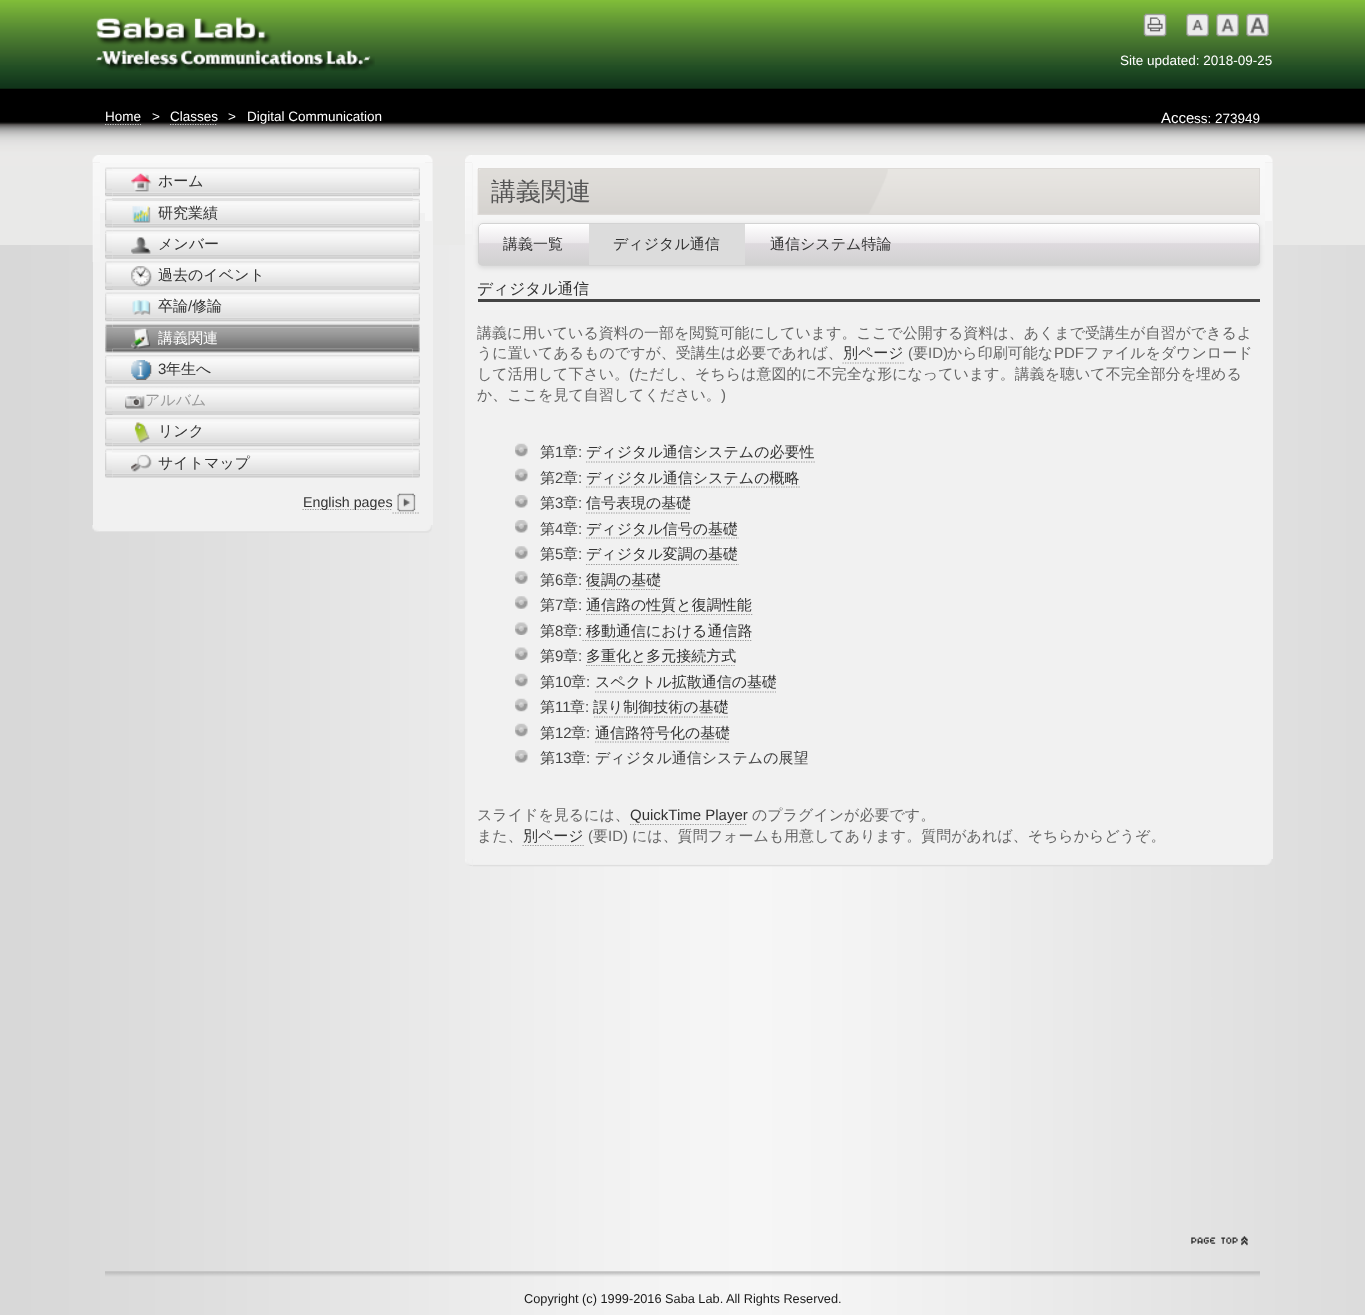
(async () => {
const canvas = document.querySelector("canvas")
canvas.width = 1365
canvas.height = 1315
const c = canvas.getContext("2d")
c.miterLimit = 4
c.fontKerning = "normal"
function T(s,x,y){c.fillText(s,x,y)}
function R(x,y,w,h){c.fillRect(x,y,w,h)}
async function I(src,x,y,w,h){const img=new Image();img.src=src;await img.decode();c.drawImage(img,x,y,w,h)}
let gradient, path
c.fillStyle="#fff"
R(0,0,1365,1315)
await I("1.png",0,245,1365,1070)
await I("2.png",0,0,1365,245)
await I("3.png",96,17,279,54)
await I("4.png",1143,13,24,24)
await I("5.png",1186,13,23,24)
await I("6.png",1216,13,23,24)
await I("7.png",1246,13,23,24)
c.font="13.5px Liberation Sans"
T("Site updated: 2018-09-25",1120,65)
T("Home",105,121)
path = new Path2D("M105 124.5h36")
c.strokeStyle="#ccc"
c.lineWidth=1.2
c.setLineDash([1.25,1.25])
c.stroke(path)
T(">",152,121)
T("Classes",170,121)
path = new Path2D("M170 124.5h47.5")
c.stroke(path)
T(">",228,121)
T("Digital Communication",247,121)
c.font="15px Liberation Sans"
T("Acce",1161,123)
c.font="13.5px Liberation Sans"
T("ss: 273949",1194,123)
await I("8.png",92,155,8,8)
c.fillStyle="#f9f9f9"
R(100,155,325,8)
await I("9.png",425,155,8,8)
c.fillStyle="#f1f1f1"
R(93,262,7,263)
await I("10.png",92,163,8,99)
R(100,213,325,312)
c.fillStyle="#f7f7f7"
R(100,163,325,50)
await I("12.png",112,167,301,2)
await I("11.png",105,167,8,5)
await I("13.png",412,167,8,5)
await I("15.png",105,171,315,21)
await I("14.png",105,171,7,19)
await I("16.png",131,173,21,19)
c.font="500 15px WenQuanYi Zen Hei"
c.fillStyle="#333"
T("ホーム",158,186)
await I("17.png",413,171,7,19)
await I("19.png",112,192,301,5)
await I("18.png",105,192,8,5)
await I("20.png",412,192,8,5)
c.fillStyle="#e2e2e2"
R(112,198,301,3)
await I("21.png",105,198,8,5)
await I("22.png",412,198,8,5)
await I("28.png",112,223,301,5)
await I("27.png",105,223,8,5)
await I("29.png",412,223,8,5)
await I("24.png",105,202,315,22)
await I("23.png",105,202,7,22)
await I("25.png",132,206,19,17)
c.fillStyle="#333"
T("研究業績",158,218)
await I("26.png",413,202,7,22)
await I("31.png",112,230,301,4)
await I("30.png",105,230,8,4)
await I("32.png",412,230,8,4)
await I("34.png",105,233,315,22)
await I("33.png",105,234,7,19)
await I("35.png",131,237,20,17)
T("メンバー",158,249)
await I("36.png",413,234,7,19)
await I("38.png",112,255,301,4)
await I("37.png",105,255,8,4)
await I("39.png",412,255,8,4)
await I("41.png",112,261,301,4)
await I("40.png",105,261,8,4)
await I("42.png",412,261,8,4)
await I("44.png",105,265,315,21)
await I("43.png",105,265,7,19)
c.fillStyle="#d5d5d5"
R(112,286,301,4)
await I("45.png",131,266,21,21)
c.fillStyle="#333"
T("過去のイベント",158,280)
await I("46.png",413,265,7,19)
await I("47.png",105,286,8,4)
await I("48.png",412,286,8,4)
await I("50.png",112,292,301,4)
await I("49.png",105,292,8,5)
await I("51.png",412,292,8,5)
await I("53.png",105,296,315,21)
await I("52.png",105,296,7,19)
await I("54.png",132,300,19,15)
T("卒論",158,311)
c.font="15px Liberation Sans"
T("/",188,311)
c.font="500 15px WenQuanYi Zen Hei"
T("修論",192,311)
await I("55.png",413,296,7,19)
await I("57.png",112,317,301,5)
await I("56.png",105,317,8,5)
await I("58.png",412,317,8,5)
await I("60.png",112,323,301,5)
await I("59.png",105,323,8,5)
await I("61.png",412,323,8,5)
await I("67.png",112,348,301,5)
await I("66.png",105,348,8,5)
await I("68.png",412,348,8,5)
await I("63.png",105,327,315,22)
await I("62.png",105,327,8,22)
await I("64.png",131,328,20,21)
c.fillStyle="#fff"
T("講義関連",158,343)
await I("65.png",412,327,8,22)
await I("31.png",112,355,301,4)
await I("30.png",105,355,8,4)
await I("32.png",412,355,8,4)
await I("34.png",105,358,315,22)
await I("33.png",105,359,7,19)
await I("69.png",131,360,21,20)
c.font="15px Liberation Sans"
c.fillStyle="#333"
T("3",158,374)
c.font="500 15px WenQuanYi Zen Hei"
T("年生へ",166,374)
await I("36.png",413,359,7,19)
await I("38.png",112,380,301,4)
await I("37.png",105,380,8,4)
await I("39.png",412,380,8,4)
await I("70.png",112,386,301,4)
await I("40.png",105,386,8,4)
await I("42.png",412,386,8,4)
await I("44.png",105,390,315,21)
await I("43.png",105,390,7,19)
await I("71.png",125,395,20,14)
c.fillStyle="#999"
T("アルバム",145,405)
await I("46.png",413,390,7,19)
c.fillStyle="#d5d5d5"
R(112,411,301,4)
await I("47.png",105,411,8,4)
await I("48.png",412,411,8,4)
await I("50.png",112,417,301,4)
await I("49.png",105,417,8,5)
await I("51.png",412,417,8,5)
await I("53.png",105,421,315,21)
await I("52.png",105,421,7,19)
await I("57.png",112,442,301,5)
await I("72.png",134,422,16,21)
c.fillStyle="#333"
T("リンク",158,436)
await I("55.png",413,421,7,19)
await I("56.png",105,442,8,5)
await I("58.png",412,442,8,5)
await I("73.png",105,448,7,5)
await I("74.png",112,448,301,2)
await I("75.png",413,448,7,5)
await I("28.png",112,473,301,5)
await I("27.png",105,473,8,5)
await I("29.png",412,473,8,5)
await I("77.png",105,452,315,22)
await I("76.png",105,452,7,22)
await I("78.png",131,454,21,18)
T("サイトマップ",158,468)
await I("26.png",413,452,7,22)
path = new Path2D("M302.5 509.5h90")
c.strokeStyle="#999"
c.stroke(path)
c.font="14.25px Liberation Sans"
T("English pages",303,507)
path = new Path2D("M392.5 513h27.5")
c.stroke(path)
await I("79.png",397,493,19,19)
c.fillStyle="#f1f1f1"
R(425,163,8,362)
c.fillStyle="#f7f7f7"
R(425,163,7,58)
await I("80.png",92,525,8,7)
await I("81.png",100,525,325,8)
await I("82.png",425,525,7,8)
await I("83.png",465,155,7,8)
c.fillStyle="#f9f9f9"
R(472,155,793,8)
await I("84.png",1265,155,8,8)
c.fillStyle="#f1f1f1"
R(473,245,792,614)
await I("86.png",473,163,792,82)
c.fillStyle="#0000001a"
c.filter="blur(2.5px)"
c.beginPath()
c.roundRect(478,224,782,44,5)
c.fill()
c.filter="none"
c.fillStyle="#f1f1f1"
R(465,163,8,696)
await I("85.png",465,163,8,71)
await I("87.png",477,169,782,46)
c.strokeStyle="#dddad7"
c.lineWidth=1
c.setLineDash([])
c.strokeRect(478.5,168.5,781,46)
await I("88.png",479,169,409,45)
c.font="500 25px WenQuanYi Zen Hei"
c.fillStyle="#555"
T("講義関連",491,200)
c.save()
c.beginPath()
c.roundRect(478,223,782,43,5)
c.clip()
gradient = c.createLinearGradient(479,224,479,265)
gradient.addColorStop(0,"#fff")
gradient.addColorStop(.45,"#ebe8eb")
gradient.addColorStop(.48,"#dedade")
gradient.addColorStop(1,"#d1d1d1")
c.fillStyle = gradient
R(478,224,782,41)
c.restore()
c.beginPath()
c.roundRect(478.5,223.5,781,42,4.5)
c.strokeStyle="#d3d3d3"
c.stroke()
c.font="500 15px WenQuanYi Zen Hei"
c.fillStyle="#333"
T("講義一覧",503,249)
c.fillStyle="#dcdcdc"
R(589,224,156,41)
c.fillStyle="#333"
T("ディジタル通信",613,249)
T("通信システム特論",770,249)
c.fillStyle="#444"
R(478,299,782,3)
c.font="500 15.75px WenQuanYi Zen Hei"
c.fillStyle="#333"
T("ディジタル通信",477,294)
c.font="500 15px WenQuanYi Zen Hei"
c.fillStyle="#666"
T("講義に用いている資料の一部を閲覧可能にしています。ここで公開する資料は、あくまで受講生が自習ができるよ",477,338)
T("うに置いてあるものですが、受講生は必要であれば、",477,358)
c.fillStyle="#333"
T("別ページ",843,358)
path = new Path2D("M842.5 363h61.5")
c.strokeStyle="#999"
c.lineWidth=1.2
c.setLineDash([1.25,1.25])
c.stroke(path)
c.font="15px Liberation Sans"
c.fillStyle="#666"
T("(",908,358)
c.font="500 15px WenQuanYi Zen Hei"
T("要",913,358)
c.font="15px Liberation Sans"
T("ID)",928,358)
c.font="500 15px WenQuanYi Zen Hei"
T("から印刷可能な",947,358)
c.font="15px Liberation Sans"
T("PDF",1054,358)
c.font="500 15px WenQuanYi Zen Hei"
T("ファイルをダウンロード",1084,358)
T("して活用して下さい。",477,379)
c.font="15px Liberation Sans"
T("(",629,379)
c.font="500 15px WenQuanYi Zen Hei"
T("ただし、そちらは意図的に不完全な形になっています。講義を聴いて不完全部分を埋める",634,379)
T("か、ここを見て自習してください。",477,400)
c.font="15px Liberation Sans"
T(")",721,400)
await I("89.png",515,443,13,14)
c.font="500 15px WenQuanYi Zen Hei"
c.fillStyle="#444"
T("第",540,457)
c.font="15px Liberation Sans"
T("1",555,457)
c.font="500 15px WenQuanYi Zen Hei"
T("章",563,457)
c.font="15px Liberation Sans"
T(":",578,457)
c.font="500 15px WenQuanYi Zen Hei"
c.fillStyle="#333"
T("ディジタル通信システムの必要性",586,457)
path = new Path2D("M586 462h229")
c.stroke(path)
await I("89.png",515,468,13,14)
c.fillStyle="#444"
T("第",540,483)
c.font="15px Liberation Sans"
T("2",555,483)
c.font="500 15px WenQuanYi Zen Hei"
T("章",563,483)
c.font="15px Liberation Sans"
T(":",578,483)
c.font="500 15px WenQuanYi Zen Hei"
c.fillStyle="#333"
T("ディジタル通信システムの概略",586,483)
path = new Path2D("M586 487h214")
c.stroke(path)
await I("90.png",515,495,13,13)
c.fillStyle="#444"
T("第",540,508)
c.font="15px Liberation Sans"
T("3",555,508)
c.font="500 15px WenQuanYi Zen Hei"
T("章",563,508)
c.font="15px Liberation Sans"
T(":",578,508)
c.font="500 15px WenQuanYi Zen Hei"
c.fillStyle="#333"
T("信号表現の基礎",586,508)
path = new Path2D("M586 513h105")
c.stroke(path)
await I("90.png",515,520,13,13)
c.fillStyle="#444"
T("第",540,534)
c.font="15px Liberation Sans"
T("4",555,534)
c.font="500 15px WenQuanYi Zen Hei"
T("章",563,534)
c.font="15px Liberation Sans"
T(":",578,534)
c.font="500 15px WenQuanYi Zen Hei"
c.fillStyle="#333"
T("ディジタル信号の基礎",586,534)
path = new Path2D("M586 538h153")
c.stroke(path)
await I("91.png",515,546,13,13)
c.fillStyle="#444"
T("第",540,559)
c.font="15px Liberation Sans"
T("5",555,559)
c.font="500 15px WenQuanYi Zen Hei"
T("章",563,559)
c.font="15px Liberation Sans"
T(":",578,559)
c.font="500 15px WenQuanYi Zen Hei"
c.fillStyle="#333"
T("ディジタル変調の基礎",586,559)
path = new Path2D("M586 564.5h153")
c.stroke(path)
await I("91.png",515,571,13,13)
c.fillStyle="#444"
T("第",540,585)
c.font="15px Liberation Sans"
T("6",555,585)
c.font="500 15px WenQuanYi Zen Hei"
T("章",563,585)
c.font="15px Liberation Sans"
T(":",578,585)
c.font="500 15px WenQuanYi Zen Hei"
c.fillStyle="#333"
T("復調の基礎",586,585)
path = new Path2D("M586 589.5h75")
c.stroke(path)
await I("91.png",515,596,13,13)
c.fillStyle="#444"
T("第",540,610)
c.font="15px Liberation Sans"
T("7",555,610)
c.font="500 15px WenQuanYi Zen Hei"
T("章",563,610)
c.font="15px Liberation Sans"
T(":",578,610)
c.font="500 15px WenQuanYi Zen Hei"
c.fillStyle="#333"
T("通信路の性質と復調性能",586,610)
path = new Path2D("M586 614.5h166.5")
c.stroke(path)
await I("92.png",515,622,13,13)
c.fillStyle="#444"
T("第",540,636)
c.font="15px Liberation Sans"
T("8",555,636)
c.font="500 15px WenQuanYi Zen Hei"
T("章",563,636)
c.font="15px Liberation Sans"
T(":",578,636)
c.font="500 15px WenQuanYi Zen Hei"
c.fillStyle="#333"
T("移動通信における通信路",586,636)
path = new Path2D("M582.5 640.5h170")
c.stroke(path)
await I("92.png",515,647,13,13)
c.fillStyle="#444"
T("第",540,661)
c.font="15px Liberation Sans"
T("9",555,661)
c.font="500 15px WenQuanYi Zen Hei"
T("章",563,661)
c.font="15px Liberation Sans"
T(":",578,661)
c.font="500 15px WenQuanYi Zen Hei"
c.fillStyle="#333"
T("多重化と多元接続方式",586,661)
path = new Path2D("M586 665.5h150")
c.stroke(path)
await I("89.png",515,673,13,14)
c.fillStyle="#444"
T("第",540,687)
c.font="15px Liberation Sans"
T("10",555,687)
c.font="500 15px WenQuanYi Zen Hei"
T("章",571,687)
c.font="15px Liberation Sans"
T(":",586,687)
c.font="500 15px WenQuanYi Zen Hei"
c.fillStyle="#333"
T("スペクトル拡散通信の基礎",595,687)
path = new Path2D("M595 692h181")
c.stroke(path)
await I("89.png",515,698,13,14)
c.fillStyle="#444"
T("第",540,712)
c.font="15px Liberation Sans"
T("11",555,712)
c.font="500 15px WenQuanYi Zen Hei"
T("章",570,712)
c.font="15px Liberation Sans"
T(":",585,712)
c.font="500 15px WenQuanYi Zen Hei"
c.fillStyle="#333"
T("誤り制御技術の基礎",593,712)
path = new Path2D("M594 717h135")
c.stroke(path)
await I("89.png",515,723,13,14)
c.fillStyle="#444"
T("第",540,738)
c.font="15px Liberation Sans"
T("12",555,738)
c.font="500 15px WenQuanYi Zen Hei"
T("章",571,738)
c.font="15px Liberation Sans"
T(":",586,738)
c.font="500 15px WenQuanYi Zen Hei"
c.fillStyle="#333"
T("通信路符号化の基礎",595,738)
path = new Path2D("M595 742h135")
c.stroke(path)
await I("90.png",515,750,13,13)
c.fillStyle="#444"
T("第",540,763)
c.font="15px Liberation Sans"
T("13",555,763)
c.font="500 15px WenQuanYi Zen Hei"
T("章",571,763)
c.font="15px Liberation Sans"
T(":",586,763)
c.font="500 15px WenQuanYi Zen Hei"
T("ディジタル通信システムの展望",595,763)
c.fillStyle="#666"
T("スライドを見るには、",477,820)
path = new Path2D("M630 824.5h117.5")
c.stroke(path)
c.font="15px Liberation Sans"
c.fillStyle="#333"
T("QuickTime Player",630,820)
c.font="500 15px WenQuanYi Zen Hei"
c.fillStyle="#666"
T("のプラグインが必要です。",752,820)
T("また、",477,841)
c.fillStyle="#333"
T("別ページ",523,841)
path = new Path2D("M522.5 845.5h61.5")
c.stroke(path)
c.font="15px Liberation Sans"
c.fillStyle="#666"
T("(",588,841)
c.font="500 15px WenQuanYi Zen Hei"
T("要",593,841)
c.font="15px Liberation Sans"
T("ID)",608,841)
c.font="500 15px WenQuanYi Zen Hei"
T("には、質問フォームも用意してあります。質問があれば、そちらからどうぞ。",632,841)
c.fillStyle="#f1f1f1"
R(1265,163,8,696)
c.fillStyle="#f7f7f7"
R(1265,163,7,58)
await I("93.png",465,859,7,7)
await I("94.png",472,859,793,8)
await I("95.png",1265,859,7,6)
await I("96.png",1191,1236,57,10)
await I("97.png",105,1271,1155,6)
c.font="12.75px Liberation Sans"
c.fillStyle="#191919"
T("Copyright (c) 1999-2016 Saba Lab. All Rights Reserved.",524,1303)
})()
